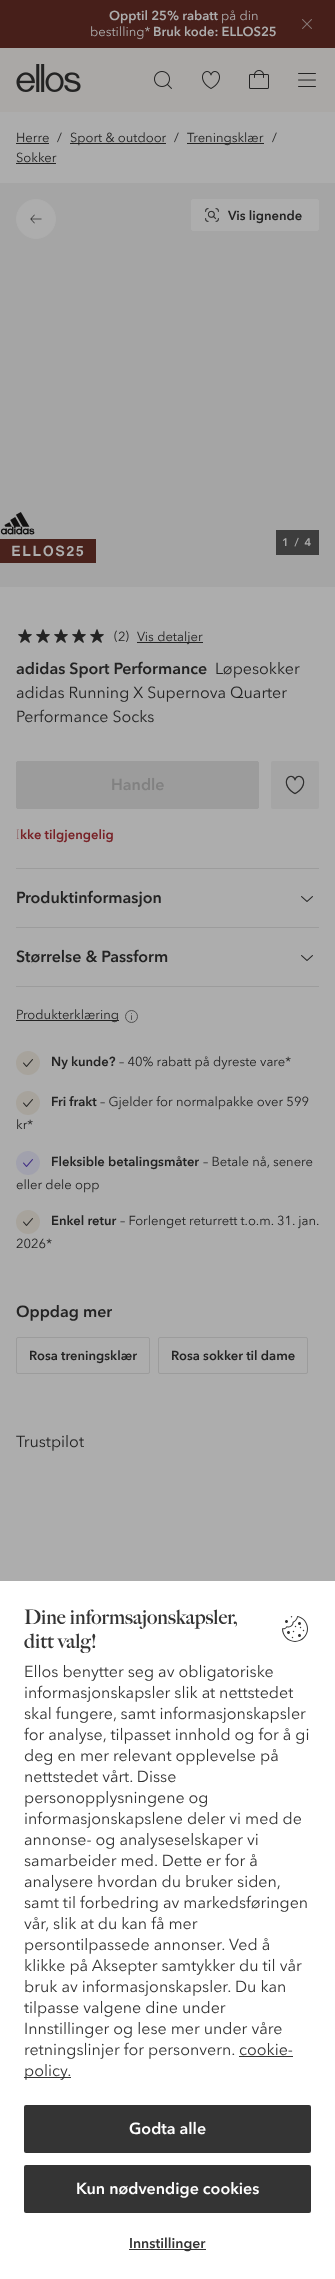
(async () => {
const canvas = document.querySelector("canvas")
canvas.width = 335
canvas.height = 2279
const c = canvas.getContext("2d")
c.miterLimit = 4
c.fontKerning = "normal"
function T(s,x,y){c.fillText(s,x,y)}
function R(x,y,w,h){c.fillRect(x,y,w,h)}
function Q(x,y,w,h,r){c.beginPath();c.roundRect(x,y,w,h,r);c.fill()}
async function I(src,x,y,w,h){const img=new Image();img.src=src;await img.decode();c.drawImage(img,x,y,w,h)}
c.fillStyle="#adadad"
R(0,0,335,2279)
c.fillStyle="#471f1a"
R(0,0,335,48)
c.font="bold 13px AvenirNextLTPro"
c.fillStyle="#adadad"
T("Opptil 25% rabatt",109,20)
c.font="13px AvenirNextLTPro"
T("på din",221,20)
T("bestilling*",90,36)
c.font="bold 13px AvenirNextLTPro"
T("Bruk kode: ELLOS25",153,36)
await I("1.png",302,19,10,10)
c.fillStyle="#aaa8a6"
R(0,48,335,64)
await I("2.png",16,64,65,28)
await I("3.png",154,71,18,18)
await I("4.png",202,71,18,18)
await I("5.png",249,70,20,19)
await I("6.png",298,73,18,14)
c.font="13px AvenirNextLTPro"
c.fillStyle="#232323"
T("Herre",16,142)
R(16,143,33,1)
T("/",57,142)
R(70,143,96,1)
T("Sport & outdoor",70,142)
T("/",174,142)
R(187,143,77,1)
T("Treningsklær",187,142)
T("/",272,142)
T("Sokker",16,162)
R(16,163,40,1)
c.fillStyle="#a5a5a5"
R(0,183,335,404)
c.fillStyle="#adadad"
c.beginPath()
c.arc(36,219,19.5,0,7)
c.fill()
c.strokeStyle="#adadad"
c.stroke()
await I("7.png",30,214,12,10)
c.beginPath()
c.roundRect(191.5,199.5,127,31,1.5)
c.fill()
c.stroke()
await I("8.png",205,208,14,14)
c.font="bold 13px AvenirNextLTPro"
c.fillStyle="#232323"
T("Vis lignende",228,220)
await I("9.png",0,512,35,23)
await I("10.png",0,539,96,24)
c.fillStyle="#3d3d3d"
R(276,530,43,25)
c.letterSpacing="1.5px"
c.font="bold 11px AvenirNextLTPro"
c.fillStyle="#adadad"
T("1 / 4",282,546)
await I("11.png",18,629,14,14)
await I("11.png",36,629,14,14)
await I("11.png",54,629,14,14)
await I("11.png",72,629,14,14)
await I("11.png",90,629,14,14)
await I("12.png",18,629,14,14)
await I("12.png",36,629,14,14)
await I("12.png",54,629,14,14)
await I("12.png",72,629,14,14)
await I("12.png",90,629,14,14)
c.letterSpacing="0px"
c.font="13px AvenirNextLTPro"
c.fillStyle="#232323"
T("(",114,640)
T("2",118,641)
T(")",125,640)
R(137,642,66,1)
T("Vis detaljer",137,641)
c.font="bold 16px AvenirNextLTPro"
T("adidas Sport Performance",16,674)
c.font="16px AvenirNextLTPro"
T("Løpesokker",215,674)
T("adidas Running X Supernova Quarter",16,698)
T("Performance Socks",16,722)
c.fillStyle="#9c9c9c"
c.beginPath()
c.roundRect(16.5,761.5,242,47,1.5)
c.fill()
c.strokeStyle="#9c9c9c"
c.stroke()
c.font="bold 16px AvenirNextLTPro"
c.fillStyle="#818181"
T("Handle",111,790)
c.fillStyle="#a5a5a5"
Q(271,761,48,48,2)
await I("13.png",285,775,20,20)
c.font="100 13px Noto Sans"
c.fillStyle="#782126"
T("I",16,839)
c.font="bold 13px AvenirNextLTPro"
T("kke tilgjengelig",20,839)
c.fillStyle="#9c9c9c"
R(16,868,303,1)
R(16,927,303,1)
c.font="bold 16px AvenirNextLTPro"
c.fillStyle="#232323"
T("Produktinformasjon",16,903)
await I("14.png",301,896,12,6)
c.fillStyle="#9c9c9c"
R(16,986,303,1)
c.fillStyle="#232323"
T("Størrelse & Passform",16,962)
await I("14.png",301,955,12,6)
R(16,1020,103,1)
c.font="13px AvenirNextLTPro"
T("Produkterklæring",16,1019)
c.beginPath()
c.arc(131.5,1016.5,6,0,7)
c.strokeStyle="#505050"
c.stroke()
c.fillStyle="#505050"
Q(131,1015,1,5,.5)
c.beginPath()
c.arc(131.5,1013.5,.5,0,7)
c.fill()
c.fillStyle="#a7a39c"
c.beginPath()
c.arc(28,1063,12,0,7)
c.fill()
await I("15.png",23,1059,10,8)
c.font="bold 13px AvenirNextLTPro"
c.fillStyle="#232323"
T("Ny kunde?",51,1066)
c.font="13px AvenirNextLTPro"
T("– 40% rabatt på dyreste vare*",119,1066)
c.fillStyle="#a7a39c"
c.beginPath()
c.arc(28,1103,12,0,7)
c.fill()
await I("15.png",23,1099,10,8)
c.font="bold 13px AvenirNextLTPro"
c.fillStyle="#232323"
T("Fri frakt",51,1106)
c.font="13px AvenirNextLTPro"
T("– Gjelder for normalpakke over 599",100,1106)
T("kr*",16,1129)
c.fillStyle="#a1a1ad"
c.beginPath()
c.arc(28,1163,12,0,7)
c.fill()
await I("16.png",23,1159,10,8)
c.font="bold 13px AvenirNextLTPro"
c.fillStyle="#232323"
T("Fleksible betalingsmåter",51,1166)
c.font="13px AvenirNextLTPro"
T("– Betale nå, senere",203,1166)
T("eller dele opp",16,1189)
c.fillStyle="#a7a39c"
c.beginPath()
c.arc(28,1222,12,0,7)
c.fill()
await I("15.png",23,1218,10,8)
c.font="bold 13px AvenirNextLTPro"
c.fillStyle="#232323"
T("Enkel retur",51,1225)
c.font="13px AvenirNextLTPro"
T("– Forlenget returrett t.o.m. 31. jan.",120,1225)
T("2026*",16,1248)
c.font="bold 16px AvenirNextLTPro"
T("Oppdag mer",16,1317)
c.beginPath()
c.roundRect(16.5,1337.5,133,36,1.5)
c.strokeStyle="#9c9c9c"
c.stroke()
c.font="bold 13px AvenirNextLTPro"
T("Rosa treningsklær",29,1360)
c.beginPath()
c.roundRect(158.5,1337.5,149,36,1.5)
c.stroke()
T("Rosa sokker til dame",171,1360)
c.font="16px AvenirNextLTPro"
T("Trustpilot",16,1447)
c.fillStyle="#fff"
R(0,1581,335,698)
c.font="bold 20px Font"
c.fillStyle="#343434"
T("Dine informsajonskapsler,",24,1624)
T("ditt valg!",24,1648)
await I("17.png",282,1616,26,26)
c.font="16px AvenirNextLTPro"
T("Ellos benytter seg av obligatoriske",24,1677)
T("informasjonskapsler slik at nettstedet",24,1698)
T("skal fungere, samt informasjonskapsler",24,1719)
T("for analyse, tilpasset innhold og for å gi",24,1740)
T("deg en mer relevant opplevelse på",24,1761)
T("nettstedet vårt. Disse",24,1782)
T("personopplysningene og",24,1803)
T("informasjonskapslene deler vi med de",24,1824)
T("annonse- og analyseselskaper vi",24,1845)
T("samarbeider med. Dette er for å",24,1866)
T("analysere hvordan du bruker siden,",24,1887)
T("samt til forbedring av markedsføringen",24,1908)
T("vår, slik at du kan få mer",24,1929)
T("persontilpassede annonser.",24,1950)
T("Ved å",229,1950)
T("klikke på Aksepter samtykker du til vår",24,1971)
T("bruk av informasjonskapsler. Du kan",24,1992)
T("tilpasse valgene dine under",24,2013)
T("Innstillinger og lese mer under våre",24,2034)
T("retningslinjer for personvern. cookie-",24,2055)
R(24,2077,47,1)
T("policy.",24,2076)
R(239,2056,54,1)
Q(24,2105,287,48,2)
c.font="bold 16px AvenirNextLTPro"
c.fillStyle="#fff"
T("Godta alle",129,2134)
c.fillStyle="#343434"
Q(24,2165,287,48,2)
c.fillStyle="#fff"
T("Kun nødvendige cookies",76,2194)
c.fillStyle="#343434"
R(129,2249,77,1)
c.font="bold 14px AvenirNextLTPro"
T("Innstillinger",129,2248)
})()
